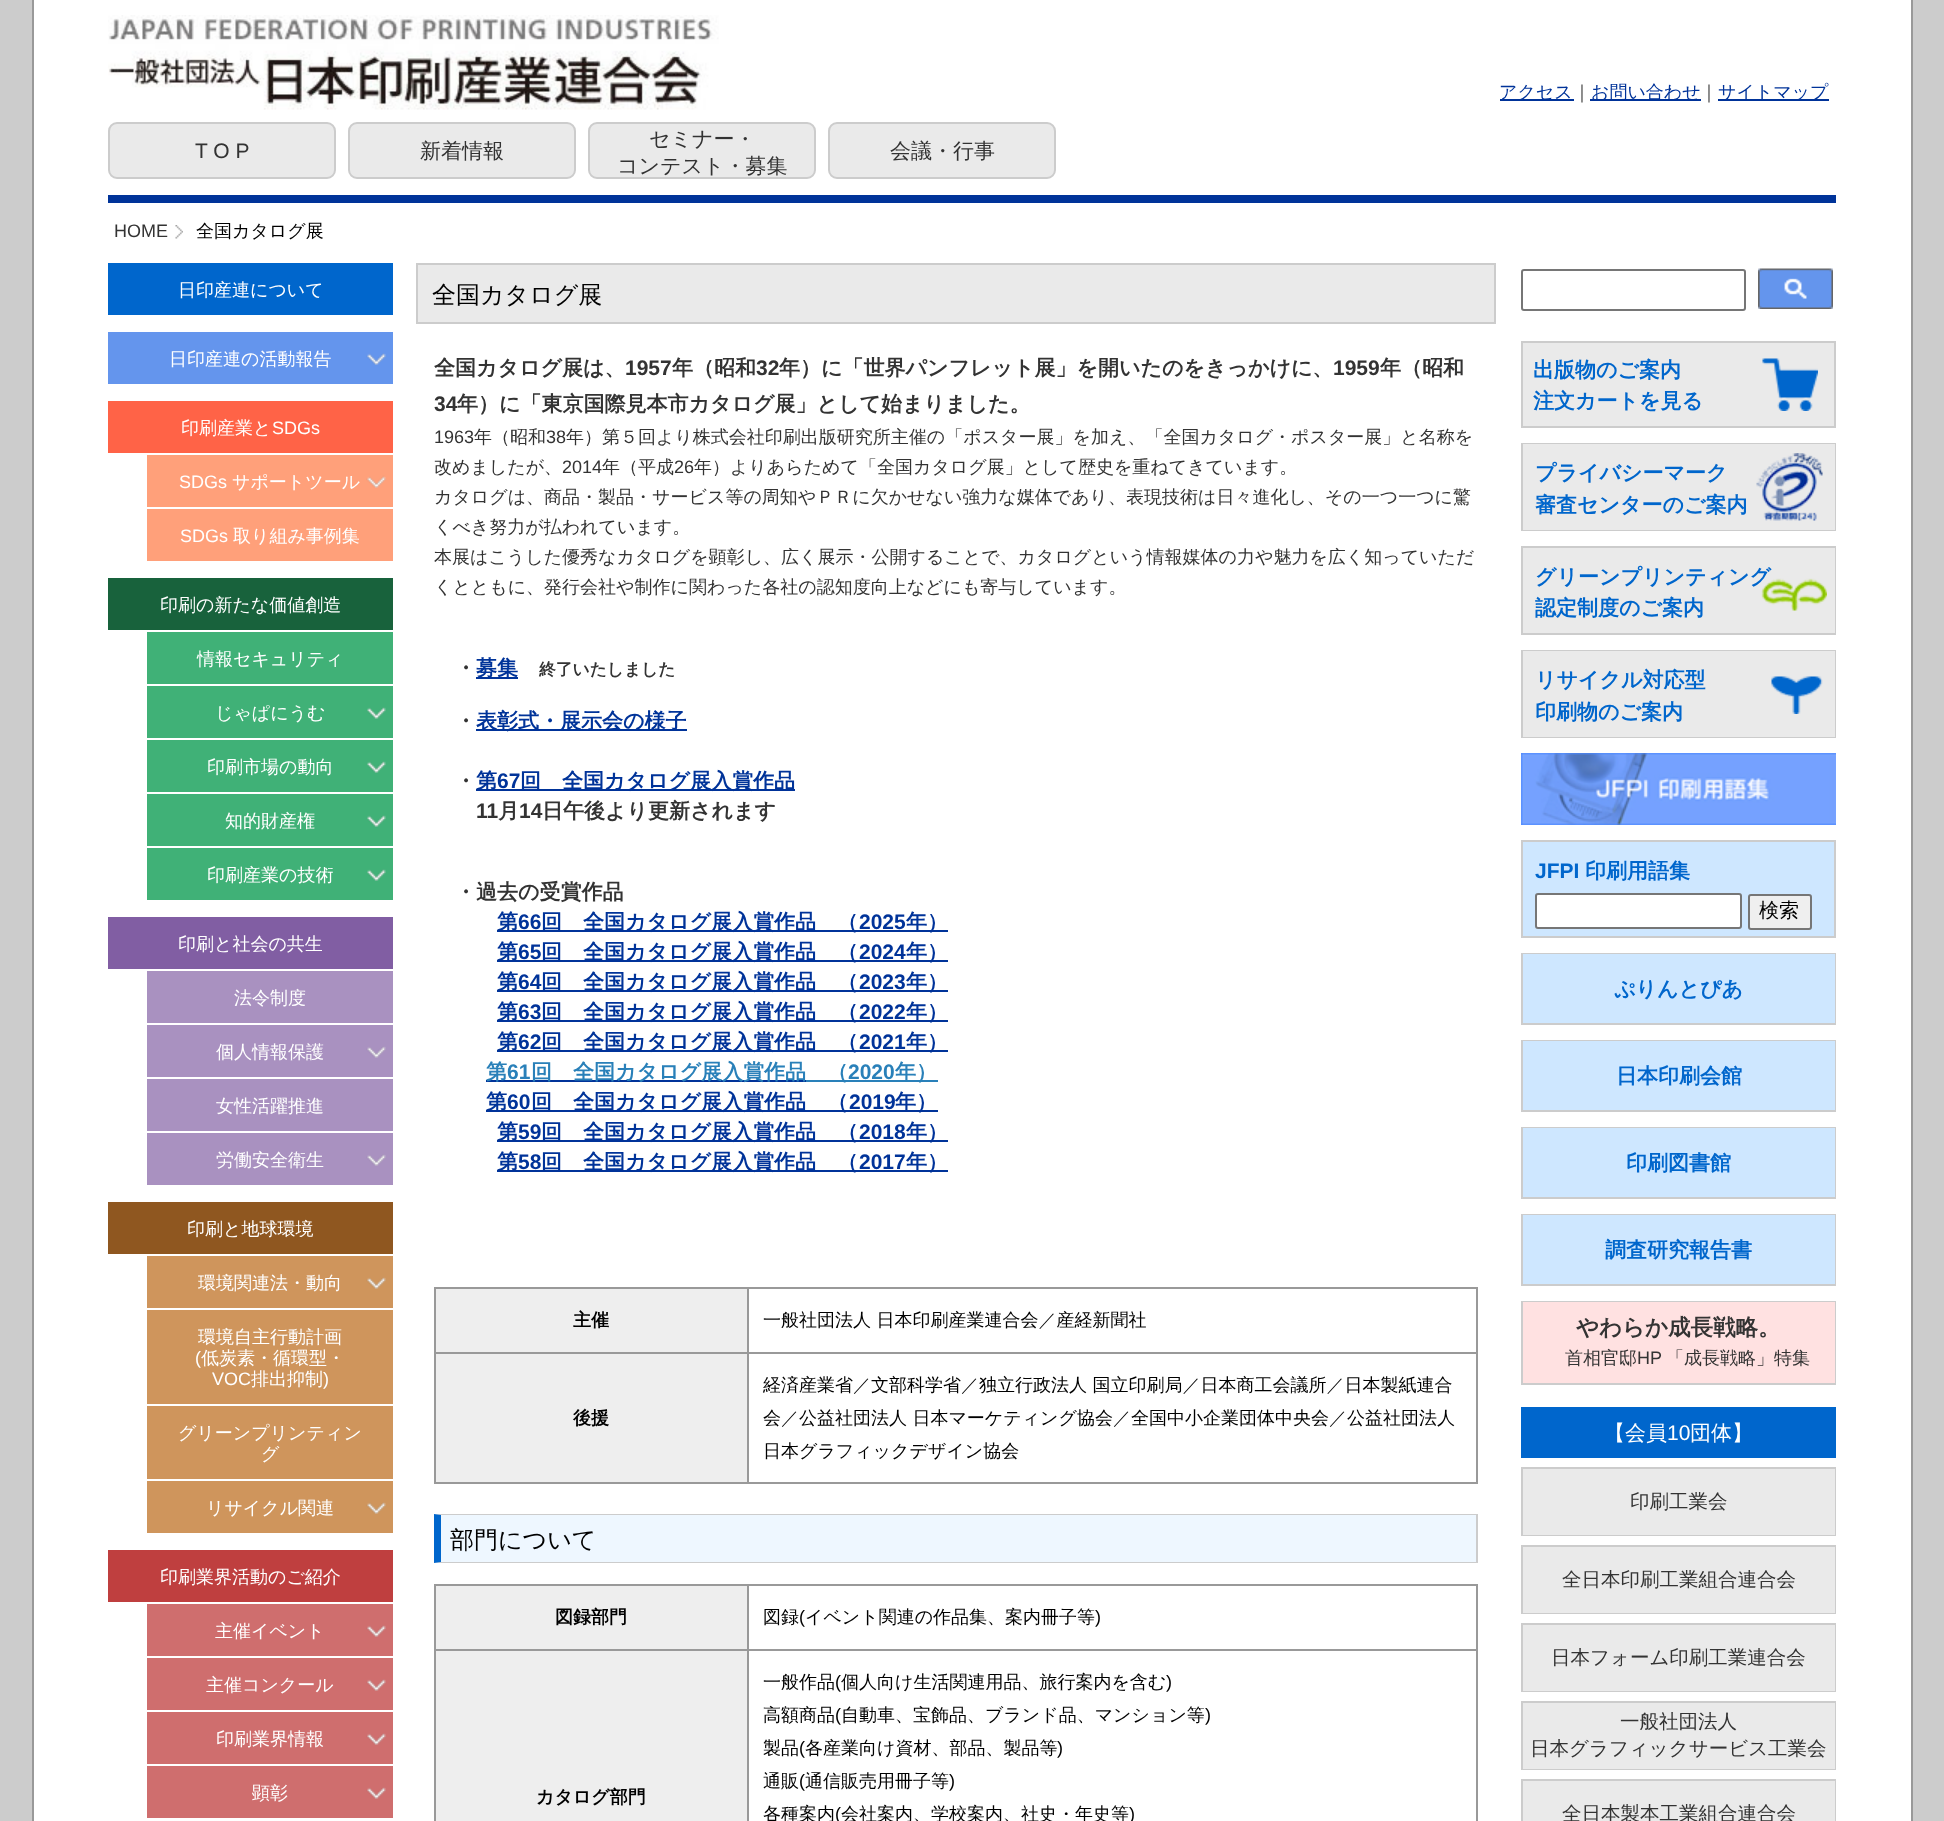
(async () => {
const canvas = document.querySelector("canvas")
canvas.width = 1944
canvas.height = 1821
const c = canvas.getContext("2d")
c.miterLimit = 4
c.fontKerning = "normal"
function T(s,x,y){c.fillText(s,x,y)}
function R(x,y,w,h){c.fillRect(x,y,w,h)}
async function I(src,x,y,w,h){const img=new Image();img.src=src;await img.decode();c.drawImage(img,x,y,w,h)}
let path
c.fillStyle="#ccc"
R(0,0,1944,1821)
c.fillStyle="#fff"
R(34,0,1877,1821)
c.fillStyle="#999"
R(1911,0,2,1821)
R(32,0,2,1821)
await I("1.png",108,15,611,95)
c.fillStyle="#039"
R(1500,99,74,2)
c.font="500 18px WenQuanYi Zen Hei"
T("アクセス",1499,98)
c.fillStyle="#333"
T("｜",1573,98)
c.fillStyle="#039"
R(1590,99,111,2)
T("お問い合わせ",1591,98)
c.fillStyle="#333"
T("｜",1700,98)
c.fillStyle="#039"
R(1718,99,111,2)
T("サイトマップ",1718,98)
R(108,195,1728,8)
c.fillStyle="#eaeaea"
c.beginPath()
c.roundRect(109,123,226,55,8)
c.fill()
c.strokeStyle="#ccc"
c.lineWidth=2
c.stroke()
c.font="21px Liberation Sans"
c.fillStyle="#333"
T("T O P",195,158)
c.fillStyle="#eaeaea"
c.beginPath()
c.roundRect(349,123,226,55,8)
c.fill()
c.stroke()
c.font="500 21px WenQuanYi Zen Hei"
c.fillStyle="#333"
T("新着情報",420,158)
c.fillStyle="#eaeaea"
c.beginPath()
c.roundRect(589,123,226,55,8)
c.fill()
c.stroke()
c.fillStyle="#333"
T("セミナー・",649,146)
T("コンテスト・募集",617,173)
c.fillStyle="#eaeaea"
c.beginPath()
c.roundRect(829,123,226,55,8)
c.fill()
c.stroke()
c.fillStyle="#333"
T("会議・行事",890,158)
c.font="18px Liberation Sans"
T("HOME",114,237)
await I("2.png",175,225,8,14)
c.font="500 18px WenQuanYi Zen Hei"
c.fillStyle="#000"
T("全国カタログ展",196,237)
c.fillStyle="#06c"
R(108,263,285,52)
c.fillStyle="#fff"
T("日印産連について",178,296)
c.fillStyle="#6495ed"
R(108,332,285,52)
await I("3.png",366,353,20,12)
c.fillStyle="#fff"
T("日印産連の活動報告",169,365)
c.fillStyle="#ff6347"
R(108,401,285,52)
c.fillStyle="#fff"
T("印刷産業と",181,434)
c.font="18px Liberation Sans"
T("SDGs",272,434)
c.fillStyle="#ffa07a"
R(147,455,246,52)
await I("4.png",366,475,20,13)
c.fillStyle="#fff"
T("SDGs",179,488)
c.font="500 18px WenQuanYi Zen Hei"
T("サポートツール",232,488)
c.fillStyle="#ffa07a"
R(147,509,246,52)
c.font="18px Liberation Sans"
c.fillStyle="#fff"
T("SDGs",180,542)
c.font="500 18px WenQuanYi Zen Hei"
T("取り組み事例集",233,542)
c.fillStyle="#18623c"
R(108,578,285,52)
c.fillStyle="#fff"
T("印刷の新たな価値創造",160,611)
c.fillStyle="#40b177"
R(147,632,246,52)
c.fillStyle="#fff"
T("情報セキュリティ",197,665)
c.fillStyle="#40b177"
R(147,686,246,52)
await I("5.png",367,707,19,12)
c.fillStyle="#fff"
T("じゃぱにうむ",215,719)
c.fillStyle="#40b177"
R(147,740,246,52)
await I("5.png",367,761,19,12)
c.fillStyle="#fff"
T("印刷市場の動向",207,773)
c.fillStyle="#40b177"
R(147,794,246,52)
await I("5.png",367,815,19,12)
c.fillStyle="#fff"
T("知的財産権",225,827)
c.fillStyle="#40b177"
R(147,848,246,52)
await I("5.png",367,869,19,12)
c.fillStyle="#fff"
T("印刷産業の技術",207,881)
c.fillStyle="#815ea3"
R(108,917,285,52)
c.fillStyle="#fff"
T("印刷と社会の共生",178,950)
c.fillStyle="#a991c0"
R(147,971,246,52)
c.fillStyle="#fff"
T("法令制度",234,1004)
c.fillStyle="#a991c0"
R(147,1025,246,52)
await I("6.png",366,1046,20,12)
c.fillStyle="#fff"
T("個人情報保護",216,1058)
c.fillStyle="#a991c0"
R(147,1079,246,52)
c.fillStyle="#fff"
T("女性活躍推進",216,1112)
c.fillStyle="#a991c0"
R(147,1133,246,52)
await I("6.png",366,1154,20,12)
c.fillStyle="#fff"
T("労働安全衛生",216,1166)
c.fillStyle="#8f5720"
R(108,1202,285,52)
c.fillStyle="#fff"
T("印刷と地球環境",187,1235)
c.fillStyle="#cf955c"
R(147,1256,246,52)
await I("7.png",366,1277,20,12)
c.fillStyle="#fff"
T("環境関連法・動向",198,1289)
c.fillStyle="#cf955c"
R(147,1310,246,94)
c.fillStyle="#fff"
T("環境自主行動計画",198,1343)
c.font="18px Liberation Sans"
T("(",195,1364)
c.font="500 18px WenQuanYi Zen Hei"
T("低炭素・循環型・",201,1364)
c.font="18px Liberation Sans"
T("VOC",212,1385)
c.font="500 18px WenQuanYi Zen Hei"
T("排出抑制",251,1385)
c.font="18px Liberation Sans"
T(")",323,1385)
c.fillStyle="#cf955c"
R(147,1406,246,73)
c.font="500 18px WenQuanYi Zen Hei"
c.fillStyle="#fff"
T("グリーンプリンティン",178,1439)
T("グ",261,1460)
c.fillStyle="#cf955c"
R(147,1481,246,52)
await I("7.png",366,1502,20,12)
c.fillStyle="#fff"
T("リサイクル関連",206,1514)
c.fillStyle="#bf3f3f"
R(108,1550,285,52)
c.fillStyle="#fff"
T("印刷業界活動のご紹介",160,1583)
c.fillStyle="#cf6e6e"
R(147,1604,246,52)
await I("8.png",366,1625,20,12)
c.fillStyle="#fff"
T("主催イベント",215,1637)
c.fillStyle="#cf6e6e"
R(147,1658,246,52)
await I("8.png",366,1679,20,12)
c.fillStyle="#fff"
T("主催コンクール",206,1691)
c.fillStyle="#cf6e6e"
R(147,1712,246,52)
await I("8.png",366,1733,20,12)
c.fillStyle="#fff"
T("印刷業界情報",216,1745)
c.fillStyle="#cf6e6e"
R(147,1766,246,52)
await I("8.png",366,1787,20,12)
c.fillStyle="#fff"
T("顕彰",252,1799)
c.fillStyle="#eaeaea"
c.beginPath()
c.rect(417,264,1078,59)
c.fill()
c.stroke()
c.font="500 24px WenQuanYi Zen Hei"
c.fillStyle="#000"
T("全国カタログ展",432,303)
c.font="bold 21px WenQuanYi Zen Hei"
c.fillStyle="#333"
T("全国カタログ展は、",434,375)
c.font="bold 21px Liberation Sans"
T("1957",625,375)
c.font="bold 21px WenQuanYi Zen Hei"
T("年（昭和",672,375)
c.font="bold 21px Liberation Sans"
T("32",756,375)
c.font="bold 21px WenQuanYi Zen Hei"
T("年）に「世界パンフレット展」を開いたのをきっかけに、",779,375)
c.font="bold 21px Liberation Sans"
T("1959",1333,375)
c.font="bold 21px WenQuanYi Zen Hei"
T("年（昭和",1380,375)
c.font="bold 21px Liberation Sans"
T("34",434,411)
c.font="bold 21px WenQuanYi Zen Hei"
T("年）に「東京国際見本市カタログ展」として始まりました。",457,411)
c.font="18px Liberation Sans"
T("1963",434,443)
c.font="500 18px WenQuanYi Zen Hei"
T("年（昭和",474,443)
c.font="18px Liberation Sans"
T("38",546,443)
c.font="500 18px WenQuanYi Zen Hei"
T("年）第５回より株式会社印刷出版研究所主催の「ポスター展」を加え、「全国カタログ・ポスター展」と名称を",566,443)
T("改めましたが、",434,473)
c.font="18px Liberation Sans"
T("2014",562,473)
c.font="500 18px WenQuanYi Zen Hei"
T("年（平成",602,473)
c.font="18px Liberation Sans"
T("26",674,473)
c.font="500 18px WenQuanYi Zen Hei"
T("年）よりあらためて「全国カタログ展」として歴史を重ねてきています。",694,473)
T("カタログは、商品・製品・サービス等の周知やＰＲに欠かせない強力な媒体であり、表現技術は日々進化し、その一つ一つに驚",434,503)
T("くべき努力が払われています。",434,533)
T("本展はこうした優秀なカタログを顕彰し、広く展示・公開することで、カタログという情報媒体の力や魅力を広く知っていただ",434,563)
T("くとともに、発行会社や制作に関わった各社の認知度向上などにも寄与しています。",434,593)
c.font="bold 21px WenQuanYi Zen Hei"
T("・",455,675)
c.fillStyle="#039"
R(476,677,42,2)
T("募集",476,675)
c.font="bold 16.75px WenQuanYi Zen Hei"
c.fillStyle="#333"
T("終了いたしました",539,675)
c.font="bold 21px WenQuanYi Zen Hei"
T("・",455,728)
c.fillStyle="#039"
R(476,729,211,2)
T("表彰式・展示会の様子",476,728)
c.fillStyle="#333"
T("・",455,788)
c.fillStyle="#039"
R(476,789,319,2)
T("第",476,788)
c.font="bold 21px Liberation Sans"
T("67",497,788)
c.font="bold 21px WenQuanYi Zen Hei"
T("回　全国カタログ展入賞作品",520,788)
c.font="bold 21px Liberation Sans"
c.fillStyle="#333"
T("11",476,818)
c.font="bold 21px WenQuanYi Zen Hei"
T("月",498,818)
c.font="bold 21px Liberation Sans"
T("14",519,818)
c.font="bold 21px WenQuanYi Zen Hei"
T("日午後より更新されます",542,818)
T("・過去の受賞作品",455,899)
c.fillStyle="#039"
R(497,930,451,2)
T("第",497,929)
c.font="bold 21px Liberation Sans"
T("66",518,929)
c.font="bold 21px WenQuanYi Zen Hei"
T("回　全国カタログ展入賞作品　（",541,929)
c.font="bold 21px Liberation Sans"
T("2025",859,929)
c.font="bold 21px WenQuanYi Zen Hei"
T("年）",906,929)
R(497,960,451,2)
T("第",497,959)
c.font="bold 21px Liberation Sans"
T("65",518,959)
c.font="bold 21px WenQuanYi Zen Hei"
T("回　全国カタログ展入賞作品　（",541,959)
c.font="bold 21px Liberation Sans"
T("2024",859,959)
c.font="bold 21px WenQuanYi Zen Hei"
T("年）",906,959)
R(497,990,451,2)
T("第",497,989)
c.font="bold 21px Liberation Sans"
T("64",518,989)
c.font="bold 21px WenQuanYi Zen Hei"
T("回　全国カタログ展入賞作品　（",541,989)
c.font="bold 21px Liberation Sans"
T("2023",859,989)
c.font="bold 21px WenQuanYi Zen Hei"
T("年）",906,989)
R(497,1020,451,2)
T("第",497,1019)
c.font="bold 21px Liberation Sans"
T("63",518,1019)
c.font="bold 21px WenQuanYi Zen Hei"
T("回　全国カタログ展入賞作品　（",541,1019)
c.font="bold 21px Liberation Sans"
T("2022",859,1019)
c.font="bold 21px WenQuanYi Zen Hei"
T("年）",906,1019)
R(497,1050,451,2)
T("第",497,1049)
c.font="bold 21px Liberation Sans"
T("62",518,1049)
c.font="bold 21px WenQuanYi Zen Hei"
T("回　全国カタログ展入賞作品　（",541,1049)
c.font="bold 21px Liberation Sans"
T("2021",859,1049)
c.font="bold 21px WenQuanYi Zen Hei"
T("年）",906,1049)
R(486,1080,320,2)
c.fillStyle="#2980b9"
T("第",486,1079)
c.font="bold 21px Liberation Sans"
T("61",507,1079)
c.font="bold 21px WenQuanYi Zen Hei"
T("回　全国カタログ展入賞作品",531,1079)
R(806,1080,132,2)
T("（",827,1079)
c.font="bold 21px Liberation Sans"
T("2020",848,1079)
c.font="bold 21px WenQuanYi Zen Hei"
T("年）",895,1079)
c.fillStyle="#039"
R(486,1110,452,2)
T("第",486,1109)
c.font="bold 21px Liberation Sans"
T("60",507,1109)
c.font="bold 21px WenQuanYi Zen Hei"
T("回　全国カタログ展入賞作品　（",531,1109)
c.font="bold 21px Liberation Sans"
T("2019",849,1109)
c.font="bold 21px WenQuanYi Zen Hei"
T("年）",895,1109)
R(497,1140,451,2)
T("第",497,1139)
c.font="bold 21px Liberation Sans"
T("59",518,1139)
c.font="bold 21px WenQuanYi Zen Hei"
T("回　全国カタログ展入賞作品　（",541,1139)
c.font="bold 21px Liberation Sans"
T("2018",859,1139)
c.font="bold 21px WenQuanYi Zen Hei"
T("年）",906,1139)
R(497,1170,451,2)
T("第",497,1169)
c.font="bold 21px Liberation Sans"
T("58",518,1169)
c.font="bold 21px WenQuanYi Zen Hei"
T("回　全国カタログ展入賞作品　（",541,1169)
c.font="bold 21px Liberation Sans"
T("2017",859,1169)
c.font="bold 21px WenQuanYi Zen Hei"
T("年）",906,1169)
c.fillStyle="#eee"
R(436,1289,311,63)
c.fillStyle="#999"
R(747,1287,731,2)
R(747,1352,731,2)
R(1476,1352,2,132)
R(747,1482,731,2)
R(747,1352,2,132)
R(434,1352,315,2)
R(747,1287,2,66)
R(434,1287,315,2)
R(434,1482,315,2)
R(434,1352,2,132)
R(434,1287,2,66)
c.font="bold 18px WenQuanYi Zen Hei"
c.fillStyle="#000"
T("主催",573,1326)
c.fillStyle="#999"
R(1476,1287,2,66)
c.font="500 18px WenQuanYi Zen Hei"
c.fillStyle="#000"
T("一般社団法人 日本印刷産業連合会／産経新聞社",763,1326)
c.fillStyle="#eee"
R(436,1354,311,128)
c.font="bold 18px WenQuanYi Zen Hei"
c.fillStyle="#000"
T("後援",573,1424)
c.font="500 18px WenQuanYi Zen Hei"
T("経済産業省／文部科学省／独立行政法人 国立印刷局／日本商工会議所／日本製紙連合",763,1391)
T("会／公益社団法人 日本マーケティング協会／全国中小企業団体中央会／公益社団法人",763,1424)
T("日本グラフィックデザイン協会",763,1457)
c.fillStyle="#eef7ff"
R(441,1515,1035,47)
c.fillStyle="#ccc"
path = new Path2D("M434 1514h1044l-2 1h-1035z")
c.fill(path)
R(1476,1514,2,49)
path = new Path2D("M1478 1563h-1044l7-1h1035z")
c.fill(path)
c.fillStyle="#06c"
path = new Path2D("M434 1563v-49l7 1v47z")
c.fill(path)
c.font="500 24px WenQuanYi Zen Hei"
c.fillStyle="#000"
T("部門について",450,1548)
c.fillStyle="#eee"
R(436,1586,311,63)
c.fillStyle="#999"
R(747,1584,731,2)
R(747,1649,731,2)
R(747,1649,2,172)
R(434,1649,315,2)
R(747,1584,2,66)
R(434,1584,315,2)
R(434,1649,2,172)
R(434,1584,2,66)
c.font="bold 18px WenQuanYi Zen Hei"
c.fillStyle="#000"
T("図録部門",555,1623)
c.fillStyle="#999"
R(1476,1649,2,172)
R(1476,1584,2,66)
c.font="500 18px WenQuanYi Zen Hei"
c.fillStyle="#000"
T("図録",763,1623)
c.font="18px Liberation Sans"
T("(",799,1623)
c.font="500 18px WenQuanYi Zen Hei"
T("イベント関連の作品集、案内冊子等",805,1623)
c.font="18px Liberation Sans"
T(")",1095,1623)
c.fillStyle="#eee"
R(436,1651,311,170)
c.font="bold 18px WenQuanYi Zen Hei"
c.fillStyle="#000"
T("カタログ部門",536,1803)
c.font="500 18px WenQuanYi Zen Hei"
T("一般作品",763,1688)
c.font="18px Liberation Sans"
T("(",835,1688)
c.font="500 18px WenQuanYi Zen Hei"
T("個人向け生活関連用品、旅行案内を含む",841,1688)
c.font="18px Liberation Sans"
T(")",1166,1688)
c.font="500 18px WenQuanYi Zen Hei"
T("高額商品",763,1721)
c.font="18px Liberation Sans"
T("(",835,1721)
c.font="500 18px WenQuanYi Zen Hei"
T("自動車、宝飾品、ブランド品、マンション等",841,1721)
c.font="18px Liberation Sans"
T(")",1205,1721)
c.font="500 18px WenQuanYi Zen Hei"
T("製品",763,1754)
c.font="18px Liberation Sans"
T("(",799,1754)
c.font="500 18px WenQuanYi Zen Hei"
T("各産業向け資材、部品、製品等",805,1754)
c.font="18px Liberation Sans"
T(")",1057,1754)
c.font="500 18px WenQuanYi Zen Hei"
T("通販",763,1787)
c.font="18px Liberation Sans"
T("(",799,1787)
c.font="500 18px WenQuanYi Zen Hei"
T("通信販売用冊子等",805,1787)
c.font="18px Liberation Sans"
T(")",949,1787)
c.font="500 18px WenQuanYi Zen Hei"
T("各種案内",763,1820)
c.font="18px Liberation Sans"
T("(",835,1820)
c.font="500 18px WenQuanYi Zen Hei"
T("会社案内、学校案内、社史・年史等",841,1820)
c.font="18px Liberation Sans"
T(")",1129,1820)
c.beginPath()
c.roundRect(1522,270,223,40,2)
c.strokeStyle="#767676"
c.stroke()
await I("9.png",1758,268,75,41)
c.fillStyle="#eaeaea"
R(1523,343,311,83)
await I("10.png",1762,358,56,53)
c.strokeStyle="#ccc"
c.strokeRect(1522,342,313,85)
c.font="bold 21px WenQuanYi Zen Hei"
c.fillStyle="#06c"
T("出版物のご案内",1533,377)
T("注文カートを見る",1533,408)
c.strokeRect(1522,444,313,86)
c.fillStyle="#eaeaea"
R(1523,444,312,86)
await I("11.png",1756,453,67,68)
c.fillStyle="#06c"
T("プライバシーマーク",1535,480)
T("審査センターのご案内",1535,512)
c.strokeRect(1522,547,313,87)
c.fillStyle="#eaeaea"
R(1523,548,312,85)
await I("12.png",1761,578,66,33)
c.fillStyle="#06c"
T("グリーンプリンティング",1535,584)
T("認定制度のご案内",1535,615)
c.strokeRect(1522,651,313,86)
c.fillStyle="#eaeaea"
R(1523,651,312,86)
await I("13.png",1771,676,52,38)
c.fillStyle="#06c"
T("リサイクル対応型",1535,687)
T("印刷物のご案内",1535,719)
await I("14.png",1521,753,315,72)
c.fillStyle="#cee7ff"
c.beginPath()
c.rect(1522,841,313,96)
c.fill()
c.stroke()
c.font="bold 21px Liberation Sans"
c.fillStyle="#06c"
T("JFPI",1535,878)
c.font="bold 21px WenQuanYi Zen Hei"
T("印刷用語集",1585,878)
c.fillStyle="#fff"
c.beginPath()
c.roundRect(1536,894,205,34,2)
c.fill()
c.strokeStyle="#767676"
c.stroke()
c.fillStyle="#efefef"
c.beginPath()
c.roundRect(1749,895,62,34,2)
c.fill()
c.stroke()
c.font="500 20px WenQuanYi Zen Hei"
c.fillStyle="#000"
T("検索",1759,917)
c.strokeStyle="#ccc"
c.strokeRect(1522,954,313,70)
c.fillStyle="#cee7ff"
R(1523,954,312,69)
c.font="bold 21px WenQuanYi Zen Hei"
c.fillStyle="#06c"
T("ぷりんとぴあ",1614,996)
c.strokeRect(1522,1041,313,70)
c.fillStyle="#cee7ff"
R(1523,1041,312,69)
c.fillStyle="#06c"
T("日本印刷会館",1616,1083)
c.strokeRect(1522,1128,313,70)
c.fillStyle="#cee7ff"
R(1523,1128,312,69)
c.fillStyle="#06c"
T("印刷図書館",1626,1170)
c.strokeRect(1522,1215,313,70)
c.fillStyle="#cee7ff"
R(1523,1215,312,69)
c.fillStyle="#06c"
T("調査研究報告書",1605,1257)
c.strokeRect(1522,1302,313,82)
c.fillStyle="#ffe1e1"
R(1523,1302,312,81)
c.font="bold 22.5px WenQuanYi Zen Hei"
c.fillStyle="#333"
T("やわらか成長戦略。",1576,1335)
c.font="500 18px WenQuanYi Zen Hei"
T("首相官邸",1565,1364)
c.font="18px Liberation Sans"
T("HP",1637,1364)
c.font="500 18px WenQuanYi Zen Hei"
T("「成長戦略」特集",1666,1364)
c.fillStyle="#06c"
R(1521,1407,315,51)
c.font="500 21px WenQuanYi Zen Hei"
c.fillStyle="#fff"
T("【会員",1604,1440)
c.font="21px Liberation Sans"
T("10",1667,1440)
c.font="500 21px WenQuanYi Zen Hei"
T("団体】",1690,1440)
c.strokeRect(1522,1468,313,67)
c.fillStyle="#eaeaea"
R(1523,1469,312,66)
c.font="500 19.5px WenQuanYi Zen Hei"
c.fillStyle="#333"
T("印刷工業会",1630,1508)
c.strokeRect(1522,1546,313,67)
c.fillStyle="#eaeaea"
R(1523,1547,312,66)
c.fillStyle="#333"
T("全日本印刷工業組合連合会",1562,1586)
c.strokeRect(1522,1624,313,67)
c.fillStyle="#eaeaea"
R(1523,1625,312,66)
c.fillStyle="#333"
T("日本フォーム印刷工業連合会",1551,1664)
c.strokeRect(1522,1702,313,67)
c.fillStyle="#eaeaea"
R(1523,1703,312,66)
c.fillStyle="#333"
T("一般社団法人",1620,1728)
T("日本グラフィックサービス工業会",1530,1755)
c.strokeRect(1522,1780,313,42)
c.fillStyle="#eaeaea"
R(1523,1781,312,40)
c.fillStyle="#333"
T("全日本製本工業組合連合会",1562,1820)
})()
